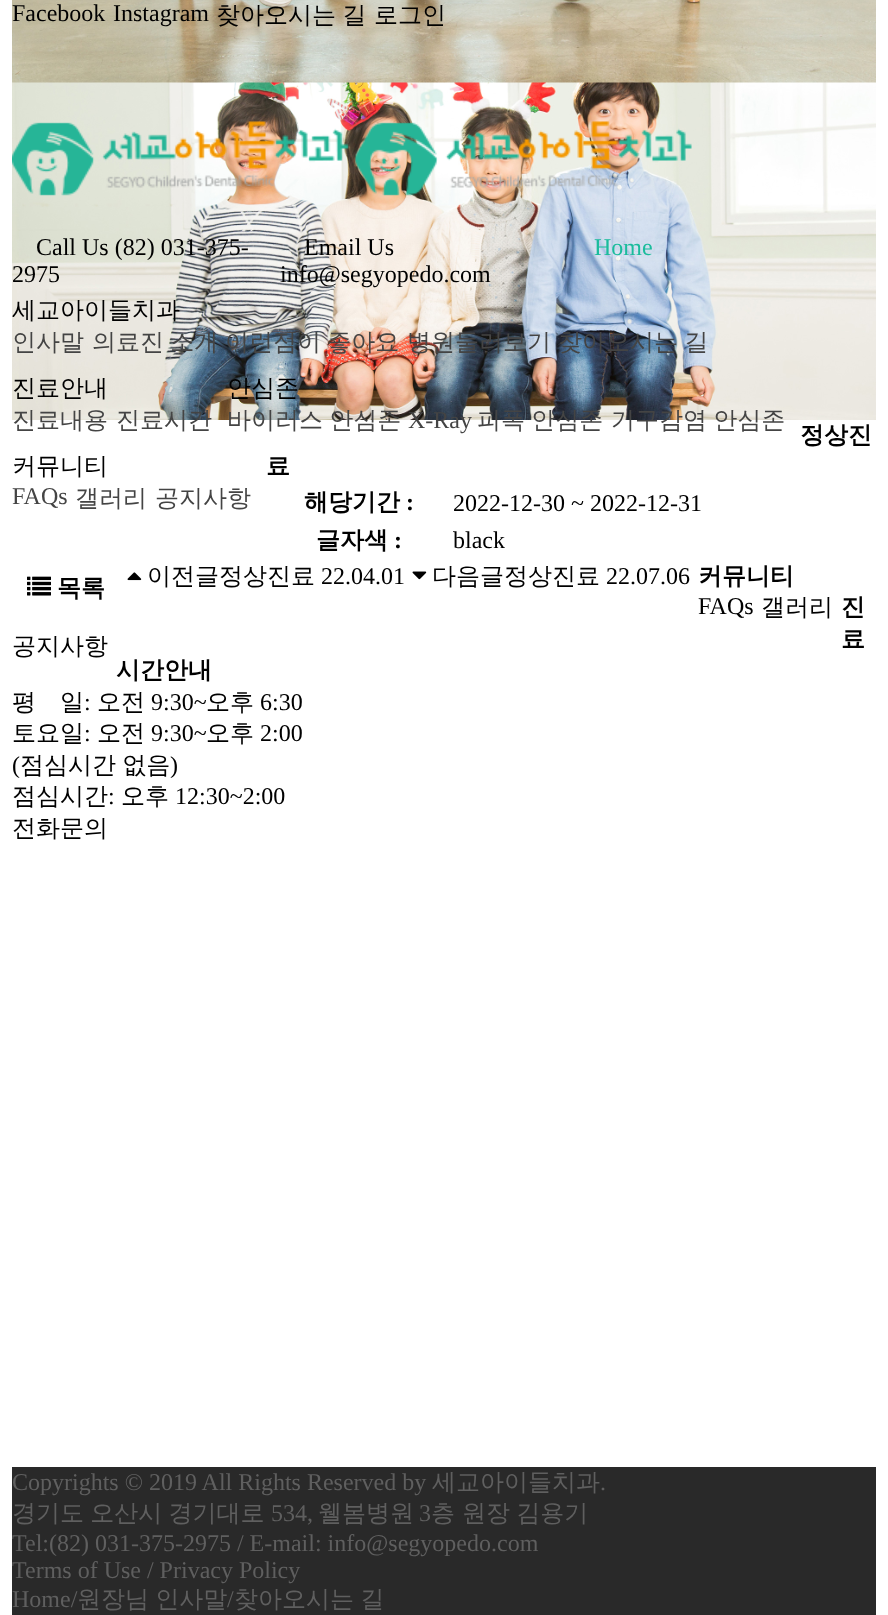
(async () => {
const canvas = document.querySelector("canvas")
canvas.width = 888
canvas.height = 1615
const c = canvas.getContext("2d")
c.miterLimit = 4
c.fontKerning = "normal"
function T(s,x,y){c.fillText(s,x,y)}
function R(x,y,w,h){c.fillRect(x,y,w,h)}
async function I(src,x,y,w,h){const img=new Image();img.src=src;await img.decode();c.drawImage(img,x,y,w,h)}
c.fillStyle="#fff"
R(0,0,888,1615)
await I("1.png",12,0,864,420)
c.font="24px Liberation Serif"
c.fillStyle="#000"
T("Facebook",12,21)
T("Instagram",113,21)
c.wordSpacing="-1px"
c.font="500 24px WenQuanYi Zen Hei"
T("찾아오시는 길",216,23)
c.wordSpacing="0px"
T("로그인",374,23)
await I("2.png",12,121,337,75)
await I("3.png",355,121,337,75)
c.font="24px Liberation Serif"
T("Call Us (82) 031-375-",36,255)
T("2975",12,282)
T("Email Us",304,255)
T("info@segyopedo.com",280,282)
c.fillStyle="#1abc9c"
T("Home",594,255)
c.font="500 24px WenQuanYi Zen Hei"
c.fillStyle="#000"
T("세교아이들치과",12,318)
c.fillStyle="#444"
T("인사말",12,350)
c.wordSpacing="-1px"
T("의료진 소개",92,350)
T("이런점이 좋아요",225,350)
c.wordSpacing="0px"
T("병원둘러보기",407,350)
c.wordSpacing="-1px"
T("찾아오시는 길",558,350)
c.wordSpacing="0px"
c.fillStyle="#000"
T("진료안내",12,396)
c.fillStyle="#444"
T("진료내용",12,428)
T("진료시간",116,428)
c.fillStyle="#000"
T("안심존",227,396)
c.wordSpacing="-1px"
c.fillStyle="#444"
T("바이러스 안심존",227,428)
c.wordSpacing="0px"
c.font="24px Liberation Serif"
T("X-Ray",408,428)
c.wordSpacing="-1px"
c.font="500 24px WenQuanYi Zen Hei"
T("피폭 안심존",477,428)
T("기구감염 안심존",611,428)
c.wordSpacing="0px"
c.fillStyle="#000"
T("커뮤니티",12,474)
c.font="24px Liberation Serif"
c.fillStyle="#444"
T("FAQs",12,504)
c.font="500 24px WenQuanYi Zen Hei"
T("갤러리",75,506)
T("공지사항",155,506)
c.font="bold 24px WenQuanYi Zen Hei"
c.fillStyle="#000"
T("정상진",800,443)
T("료",266,474)
T("해당기간",304,510)
c.font="bold 24px Liberation Serif"
T(":",406,510)
c.font="24px Liberation Serif"
T("2022-12-30 ~ 2022-12-31",453,511)
c.font="bold 24px WenQuanYi Zen Hei"
T("글자색",316,548)
c.font="bold 24px Liberation Serif"
T(":",394,548)
c.font="24px Liberation Serif"
T("black",453,548)
await I("4.png",27,576,24,20)
c.font="bold 24px WenQuanYi Zen Hei"
T("목록",57,596)
await I("5.png",127,572,15,9)
c.font="500 24px WenQuanYi Zen Hei"
T("이전글정상진료",147,584)
c.font="24px Liberation Serif"
T("22.04.01",321,584)
await I("6.png",412,571,15,9)
c.font="500 24px WenQuanYi Zen Hei"
T("다음글정상진료",432,584)
c.font="24px Liberation Serif"
T("22.07.06",606,584)
c.font="bold 24px WenQuanYi Zen Hei"
T("커뮤니티",698,584)
c.font="24px Liberation Serif"
T("FAQs",698,614)
c.font="500 24px WenQuanYi Zen Hei"
T("갤러리",761,615)
T("공지사항",12,654)
c.font="bold 24px WenQuanYi Zen Hei"
T("진",841,615)
T("료",841,647)
T("시간안내",116,678)
c.font="500 24px WenQuanYi Zen Hei"
T("평",12,710)
T("일",60,710)
c.font="24px Liberation Serif"
T(":",84,710)
c.font="500 24px WenQuanYi Zen Hei"
T("오전",97,710)
c.font="24px Liberation Serif"
T("9:30~",151,710)
c.font="500 24px WenQuanYi Zen Hei"
T("오후",206,710)
c.font="24px Liberation Serif"
T("6:30",260,710)
c.font="500 24px WenQuanYi Zen Hei"
T("토요일",12,741)
c.font="24px Liberation Serif"
T(":",84,741)
c.font="500 24px WenQuanYi Zen Hei"
T("오전",97,741)
c.font="24px Liberation Serif"
T("9:30~",151,741)
c.font="500 24px WenQuanYi Zen Hei"
T("오후",206,741)
c.font="24px Liberation Serif"
T("2:00",260,741)
T("(",12,773)
c.wordSpacing="-1px"
c.font="500 24px WenQuanYi Zen Hei"
T("점심시간 없음",20,773)
c.wordSpacing="0px"
c.font="24px Liberation Serif"
T(")",170,773)
c.font="500 24px WenQuanYi Zen Hei"
T("점심시간",12,804)
c.font="24px Liberation Serif"
T(":",108,804)
c.font="500 24px WenQuanYi Zen Hei"
T("오후",121,804)
c.font="24px Liberation Serif"
T("12:30~2:00",175,804)
c.font="500 24px WenQuanYi Zen Hei"
T("전화문의",12,836)
c.fillStyle="#292929"
R(12,1467,864,148)
c.font="24px Liberation Serif"
c.fillStyle="#5f5f5f"
T("Copyrights © 2019 All Rights Reserved by",12,1490)
c.font="500 24px WenQuanYi Zen Hei"
T("세교아이들치과",432,1490)
c.font="24px Liberation Serif"
T(".",600,1490)
c.wordSpacing="-1px"
c.font="500 24px WenQuanYi Zen Hei"
T("경기도 오산시 경기대로",12,1521)
c.wordSpacing="0px"
c.font="24px Liberation Serif"
T("534,",271,1521)
c.font="500 24px WenQuanYi Zen Hei"
T("웰봄병원",318,1521)
c.font="24px Liberation Serif"
T("3",419,1521)
c.font="500 24px WenQuanYi Zen Hei"
T("층",431,1521)
c.wordSpacing="-1px"
T("원장 김용기",462,1521)
c.wordSpacing="0px"
c.font="24px Liberation Serif"
T("Tel:(82) 031-375-2975 / E-mail: info@segyopedo.com",12,1551)
T("Terms of Use / Privacy Policy",12,1578)
T("Home/",12,1607)
c.wordSpacing="-1px"
c.font="500 24px WenQuanYi Zen Hei"
T("원장님 인사말",77,1607)
c.wordSpacing="0px"
c.font="24px Liberation Serif"
T("/",227,1607)
c.wordSpacing="-1px"
c.font="500 24px WenQuanYi Zen Hei"
T("찾아오시는 길",234,1607)
})()
